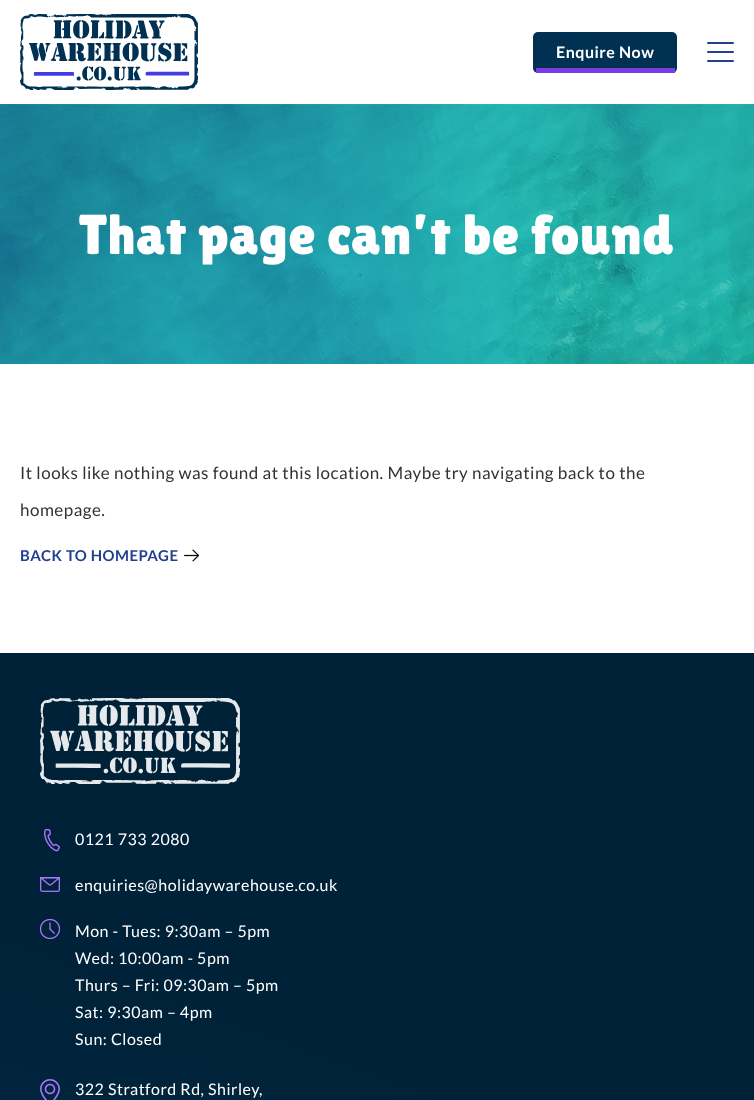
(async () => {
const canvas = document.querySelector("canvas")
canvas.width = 754
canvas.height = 1100
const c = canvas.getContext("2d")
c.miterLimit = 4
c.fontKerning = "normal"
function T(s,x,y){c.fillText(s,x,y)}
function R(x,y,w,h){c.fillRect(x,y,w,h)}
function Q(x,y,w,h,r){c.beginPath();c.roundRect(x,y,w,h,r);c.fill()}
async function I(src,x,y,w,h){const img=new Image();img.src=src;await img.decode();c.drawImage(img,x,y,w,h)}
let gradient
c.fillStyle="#fff"
R(0,0,754,1100)
await I("1.png",20,14,178,76)
c.fillStyle="#003152"
Q(533,32,144,41,5)
c.fillStyle="#7a3ce8"
R(536,68,139,5)
c.letterSpacing="0.5px"
c.font="bold 16px Lato"
c.fillStyle="#fff"
T("Enquire Now",556,58)
c.fillStyle="#23408f"
Q(707,42,27,2,1)
Q(707,51,27,2,1)
Q(707,60,27,2,1)
await I("2.png",0,104,754,260)
c.font="56px Lilita One"
c.fillStyle="#fff"
T("That page can’t be found",79,254)
c.font="17px Lato"
c.fillStyle="#333"
T("It looks like nothing was found at this location. Maybe try navigating back to the",20,479)
T("homepage.",20,516)
c.font="bold 15px Lato"
c.fillStyle="#23408f"
T("BACK TO HOMEPAGE",20,561)
await I("3.png",184,549,15,13)
gradient = c.createLinearGradient(104,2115,650,615)
gradient.addColorStop(0,"#003152")
gradient.addColorStop(.7,"#002238")
c.fillStyle = gradient
R(0,653,754,447)
await I("4.png",40,698,200,86)
await I("5.png",44,829,16,23)
c.font="16px Lato"
c.fillStyle="#fff"
T("0121 733 2080",75,845)
await I("6.png",40,877,20,15)
T("enquiries@holidaywarehouse.co.uk",75,891)
await I("7.png",40,919,20,20)
T("Mon - Tues: 9:30am – 5pm",75,937)
T("Wed: 10:00am - 5pm",75,964)
T("Thurs – Fri: 09:30am – 5pm",75,991)
T("Sat: 9:30am – 4pm",75,1018)
T("Sun: Closed",75,1045)
await I("8.png",40,1079,20,21)
T("322 Stratford Rd, Shirley,",75,1095)
})()
